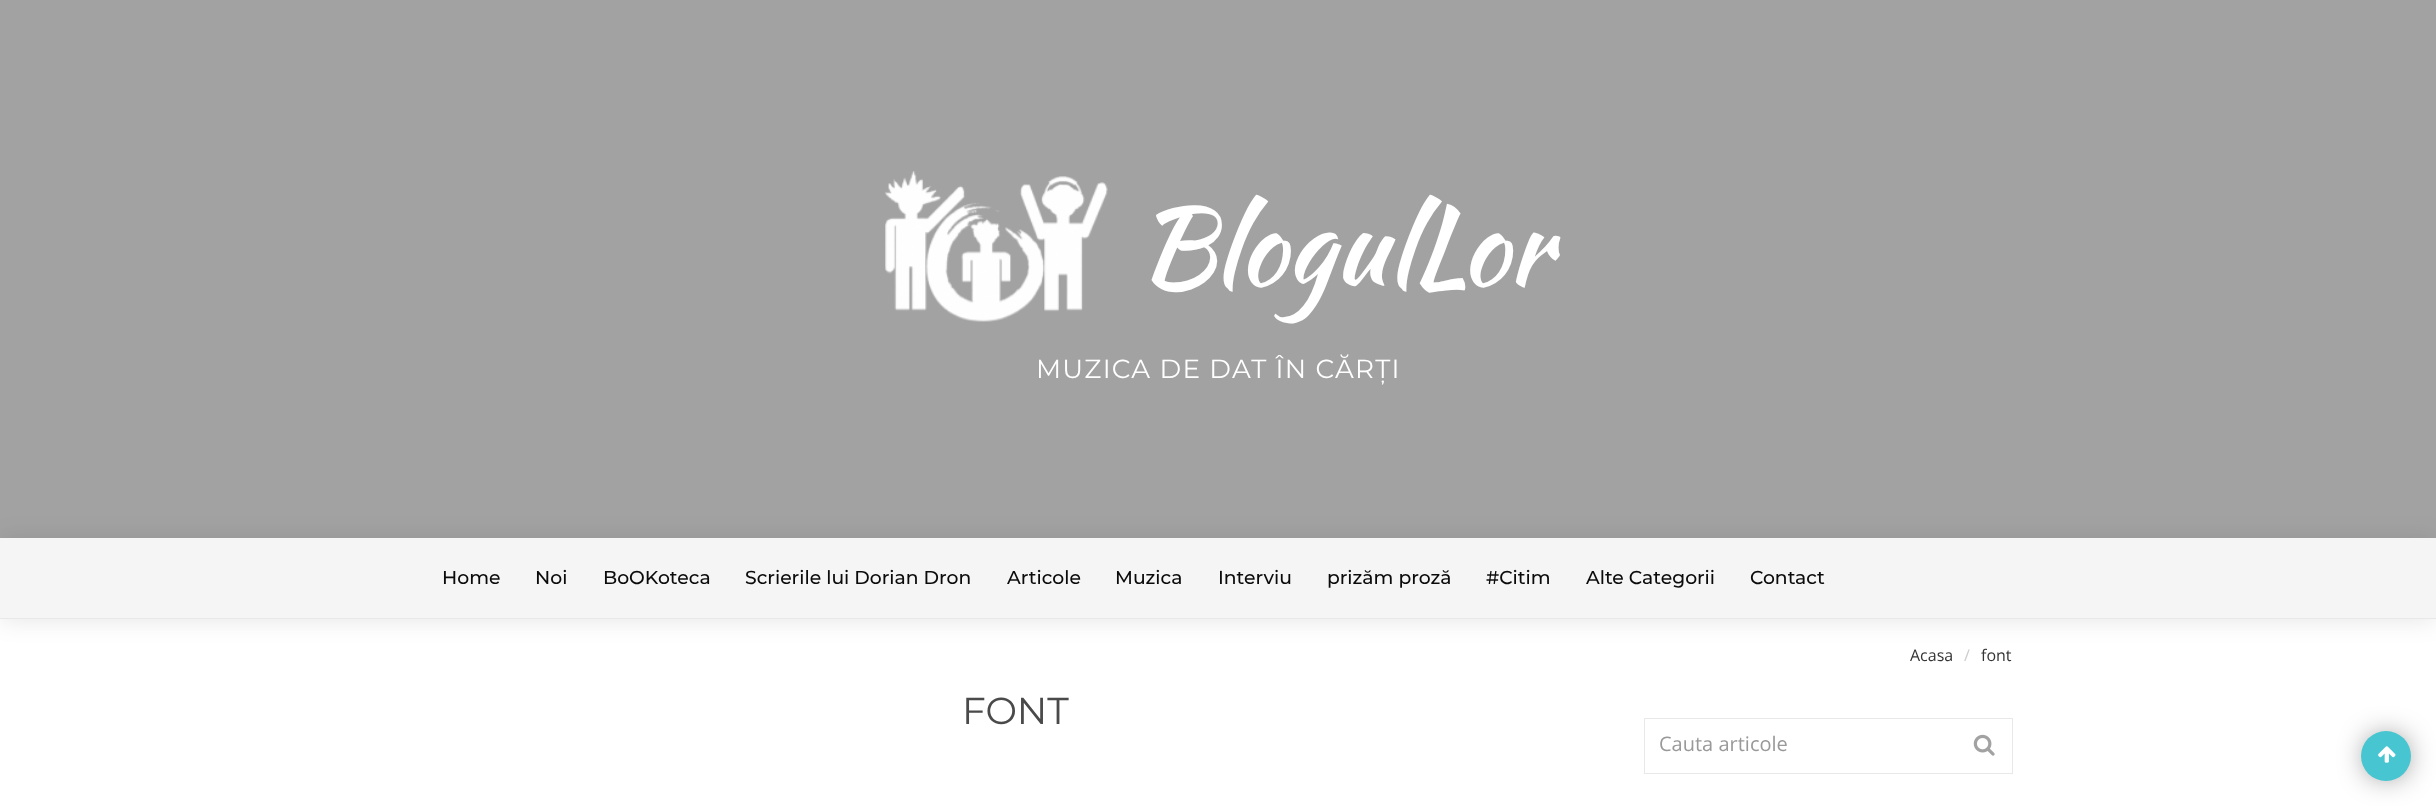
(async () => {
const canvas = document.querySelector("canvas")
canvas.width = 2436
canvas.height = 806
const c = canvas.getContext("2d")
c.miterLimit = 4
c.fontKerning = "normal"
function T(s,x,y){c.fillText(s,x,y)}
function R(x,y,w,h){c.fillRect(x,y,w,h)}
async function I(src,x,y,w,h){const img=new Image();img.src=src;await img.decode();c.drawImage(img,x,y,w,h)}
c.fillStyle="#fff"
R(0,0,2436,806)
c.fillStyle="#0000001a"
c.filter="blur(12.5px)"
c.beginPath()
c.rect(0,539,2436,81)
c.fill()
c.filter="none"
c.fillStyle="#17171766"
R(0,0,2436,538)
await I("1.png",885,171,223,151)
c.font="107.5px Kaushan Script"
c.fillStyle="#fff"
T("BlogulLor",1137,284)
c.letterSpacing="1.25px"
c.font="26.25px Montserrat"
T("MUZICA DE DAT ÎN CĂRȚI",1036,378)
c.fillStyle="#f5f5f5"
R(0,538,2436,80)
c.fillStyle="#e8e8e8"
R(0,618,2436,1)
c.letterSpacing="0px"
c.font="500 18.75px Montserrat"
c.fillStyle="#0b0b0b"
T("Home",442,584)
T("Noi",535,584)
T("BoOKoteca",603,584)
T("Scrierile lui Dorian Dron",745,584)
T("Articole",1007,584)
T("Muzica",1115,584)
T("Interviu",1218,584)
T("prizăm proză",1327,584)
T("#Citim",1486,584)
T("Alte Categorii",1586,584)
T("Contact",1750,584)
c.font="16px Open Sans"
c.fillStyle="#353535"
T("Acasa",1910,661)
c.fillStyle="#ccc"
T("/",1964,661)
c.fillStyle="#353535"
T("font",1981,661)
c.font="37.5px Montserrat"
c.fillStyle="#4a4a4a"
T("FONT",962,724)
c.strokeStyle="#e8e8e8"
c.strokeRect(1644.5,718.5,368,55)
c.font="20px Open Sans"
c.fillStyle="#999"
T("Cauta articole",1659,751)
await I("2.png",1973,734,22,22)
c.fillStyle="#000000a1"
c.filter="blur(15px)"
c.beginPath()
c.roundRect(2368,738,37,37,18.5)
c.fill()
c.filter="none"
c.fillStyle="#47c5d0"
c.beginPath()
c.arc(2386,756,25,0,7)
c.fill()
await I("3.png",2378,746,18,17)
})()
